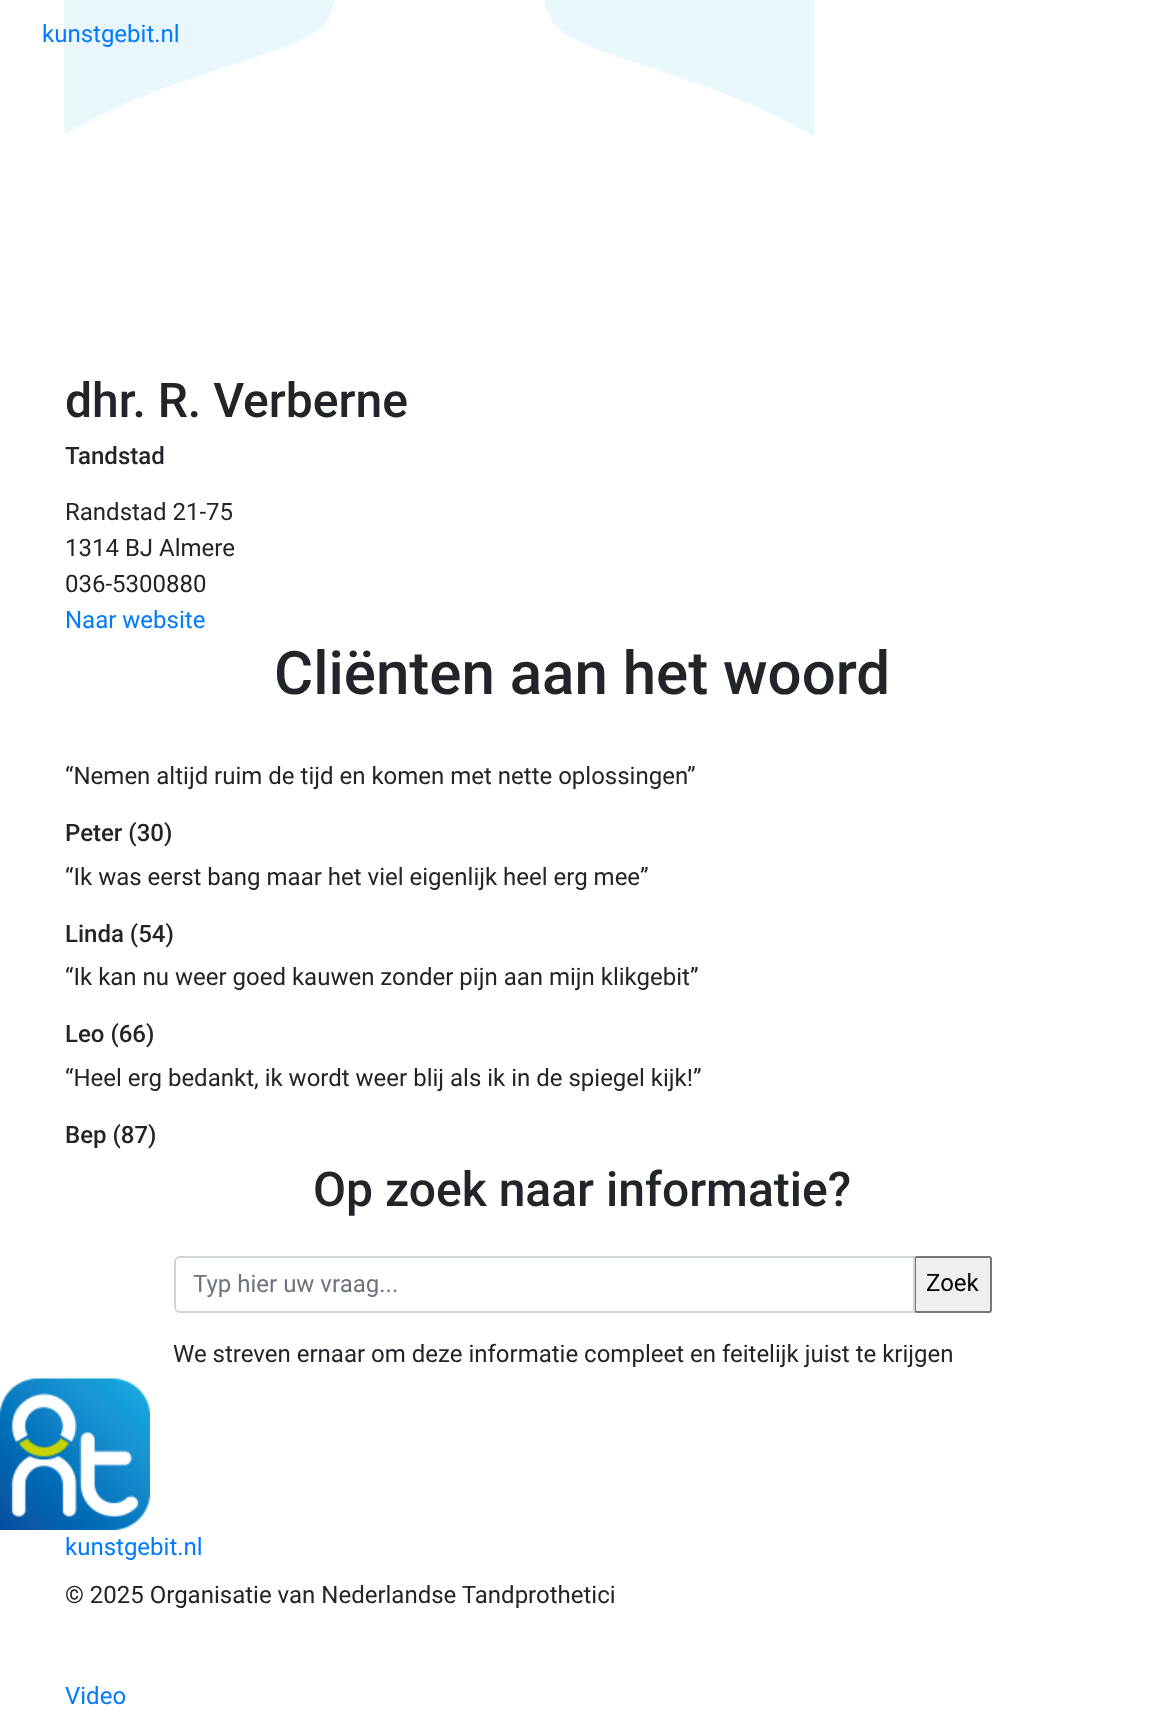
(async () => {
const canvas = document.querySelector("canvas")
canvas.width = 1164
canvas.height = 1720
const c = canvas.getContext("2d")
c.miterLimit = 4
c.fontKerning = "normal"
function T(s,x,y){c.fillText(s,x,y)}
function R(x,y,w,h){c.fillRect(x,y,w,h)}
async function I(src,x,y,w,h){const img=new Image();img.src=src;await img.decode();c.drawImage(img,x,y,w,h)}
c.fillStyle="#fff"
R(0,0,1164,1720)
await I("1.png",64,0,751,137)
c.font="24px Roboto"
c.fillStyle="#007bff"
T("kunstgebit.nl",42,42)
c.font="500 48px Roboto"
c.fillStyle="#212529"
T("dhr. R. Verberne",65,417)
c.font="500 24px Roboto"
T("Tandstad",65,464)
c.font="24px Roboto"
T("Randstad 21-75",65,520)
T("1314 BJ Almere",65,556)
T("036-5300880",65,592)
c.fillStyle="#007bff"
T("Naar website",65,628)
c.font="500 60px Roboto"
c.fillStyle="#212529"
T("Cliënten aan het woord",274,694)
c.font="24px Roboto"
T("“Nemen altijd ruim de tijd en komen met nette oplossingen”",65,784)
c.font="500 24px Roboto"
T("Peter (30)",65,841)
c.font="24px Roboto"
T("“Ik was eerst bang maar het viel eigenlijk heel erg mee”",65,885)
c.font="500 24px Roboto"
T("Linda (54)",65,942)
c.font="24px Roboto"
T("“Ik kan nu weer goed kauwen zonder pijn aan mijn klikgebit”",65,985)
c.font="500 24px Roboto"
T("Leo (66)",65,1042)
c.font="24px Roboto"
T("“Heel erg bedankt, ik wordt weer blij als ik in de spiegel kijk!”",65,1086)
c.font="500 24px Roboto"
T("Bep (87)",65,1143)
c.font="500 48px Roboto"
T("Op zoek naar informatie?",313,1206)
c.fillStyle="#efefef"
c.beginPath()
c.roundRect(915,1257,76,55,2)
c.fill()
c.strokeStyle="#767676"
c.lineWidth=2
c.stroke()
c.beginPath()
c.roundRect(175,1257,739,55,[5,0,0,5])
c.strokeStyle="#ced4da"
c.stroke()
c.font="24px Roboto"
c.fillStyle="#6c757d"
T("Typ hier uw vraag...",193,1292)
c.fillStyle="#000"
T("Zoek",926,1291)
c.fillStyle="#212529"
T("We streven ernaar om deze informatie compleet en feitelijk juist te krijgen",173,1362)
await I("2.png",0,1378,150,152)
c.fillStyle="#007bff"
T("kunstgebit.nl",65,1555)
c.fillStyle="#212529"
T("© 2025 Organisatie van Nederlandse Tandprothetici",65,1603)
c.fillStyle="#007bff"
T("Video",65,1704)
})()
